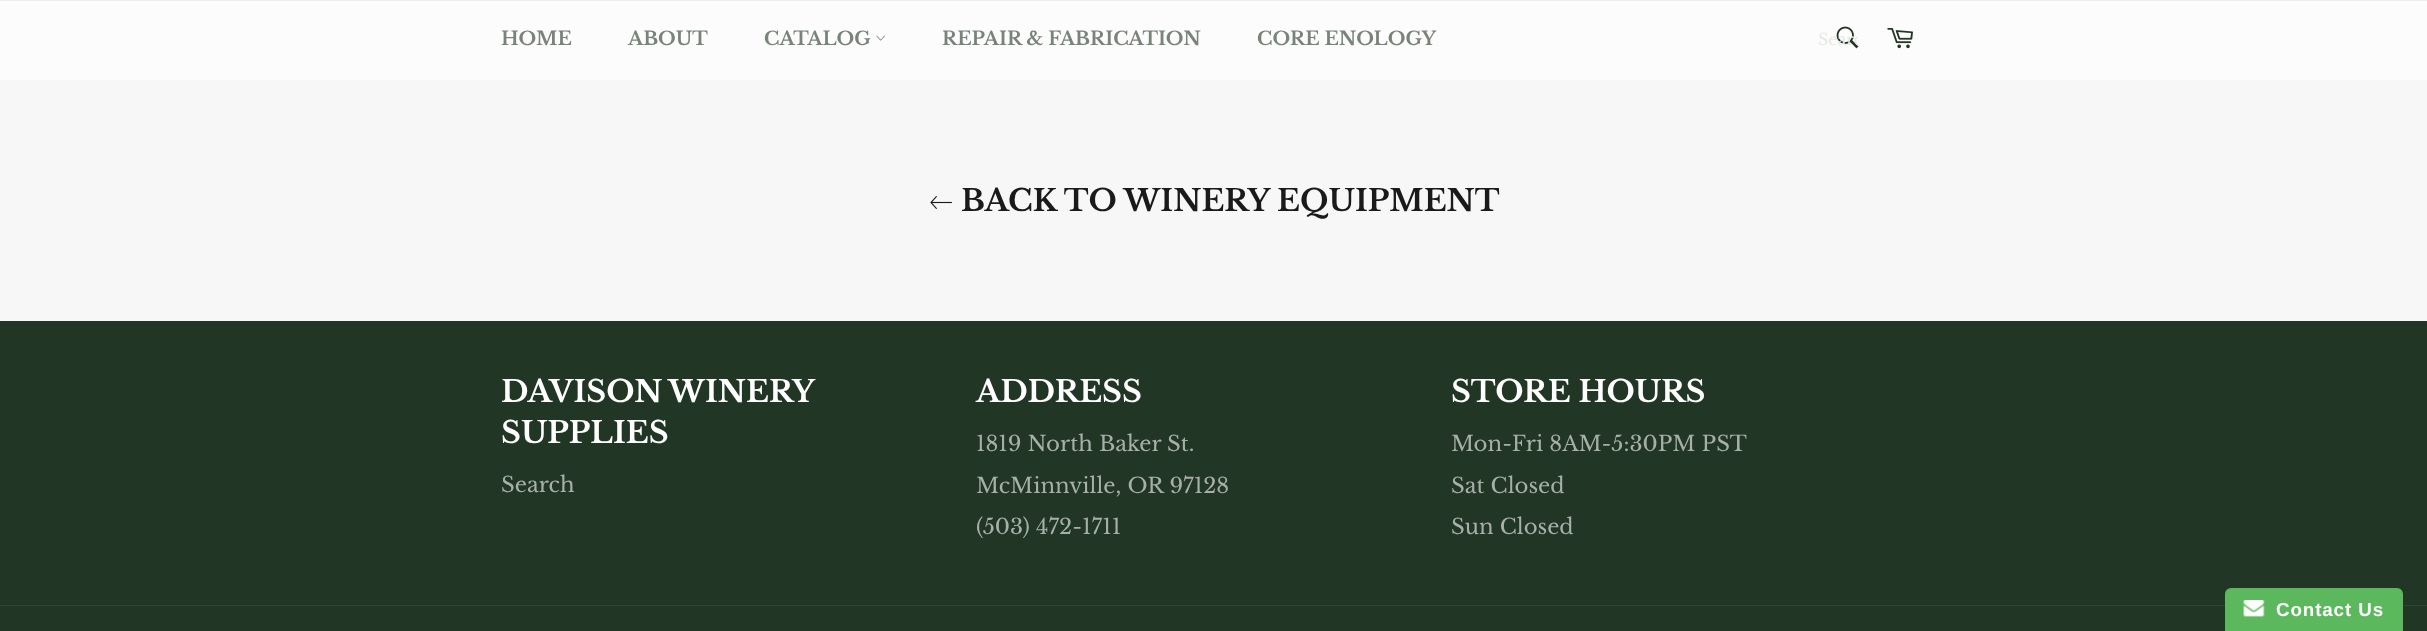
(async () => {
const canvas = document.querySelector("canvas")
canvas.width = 2427
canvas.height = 631
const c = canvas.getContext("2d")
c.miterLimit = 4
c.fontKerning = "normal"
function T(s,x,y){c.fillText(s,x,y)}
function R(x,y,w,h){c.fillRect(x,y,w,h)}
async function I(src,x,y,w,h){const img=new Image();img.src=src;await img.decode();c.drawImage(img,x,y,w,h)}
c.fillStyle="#fcfcfc"
R(0,0,2427,631)
c.fillStyle="#ededed"
R(0,0,2427,1)
c.font="bold 18.75px Libre Baskerville"
c.fillStyle="#78847a"
T("HOME",501,45)
T("ABOUT",628,45)
T("CATALOG",764,45)
await I("1.png",876,35,9,6)
T("REPAIR & FABRICATION",942,45)
T("CORE ENOLOGY",1257,45)
await I("2.png",1836,26,23,23)
c.save()
c.beginPath()
c.rect(1818,29,40,21)
c.clip()
c.font="16px Libre Baskerville"
c.fillStyle="#e6e8e6"
T("Searc",1818,45)
c.restore()
await I("3.png",1887,28,26,21)
c.fillStyle="#f7f7f7"
R(0,80,2427,241)
await I("4.png",930,196,23,13)
c.font="bold 30px Libre Baskerville"
c.fillStyle="#1a1a1a"
T("BACK TO WINERY EQUIPMENT",961,211)
c.fillStyle="#213625"
R(0,321,2427,310)
c.wordSpacing="-1px"
c.fillStyle="#fff"
T("DAVISON WINERY",501,402)
c.wordSpacing="0px"
T("SUPPLIES",501,443)
c.font="21.25px Libre Baskerville"
c.fillStyle="#a6afa8"
T("Search",501,492)
c.font="bold 30px Libre Baskerville"
c.fillStyle="#fff"
T("ADDRESS",976,402)
c.font="21.25px Libre Baskerville"
c.fillStyle="#a6afa8"
T("1819 North Baker St.",976,451)
T("McMinnville, OR 97128",976,493)
T("(503) 472-1711",976,534)
c.font="bold 30px Libre Baskerville"
c.fillStyle="#fff"
T("STORE HOURS",1451,402)
c.font="21.25px Libre Baskerville"
c.fillStyle="#a6afa8"
T("Mon-Fri 8AM-5:30PM PST",1451,451)
T("Sat Closed",1451,493)
T("Sun Closed",1451,534)
c.fillStyle="#2b4630"
R(0,605,2427,1)
c.fillStyle="#5cb85c"
c.beginPath()
c.roundRect(2225,588,178,43,[6,6,0,0])
c.fill()
await I("5.png",2243,600,22,17)
c.letterSpacing="0.9px"
c.font="bold 18.75px Liberation Sans"
c.fillStyle="#fff"
T("Contact Us",2276,616)
})()
